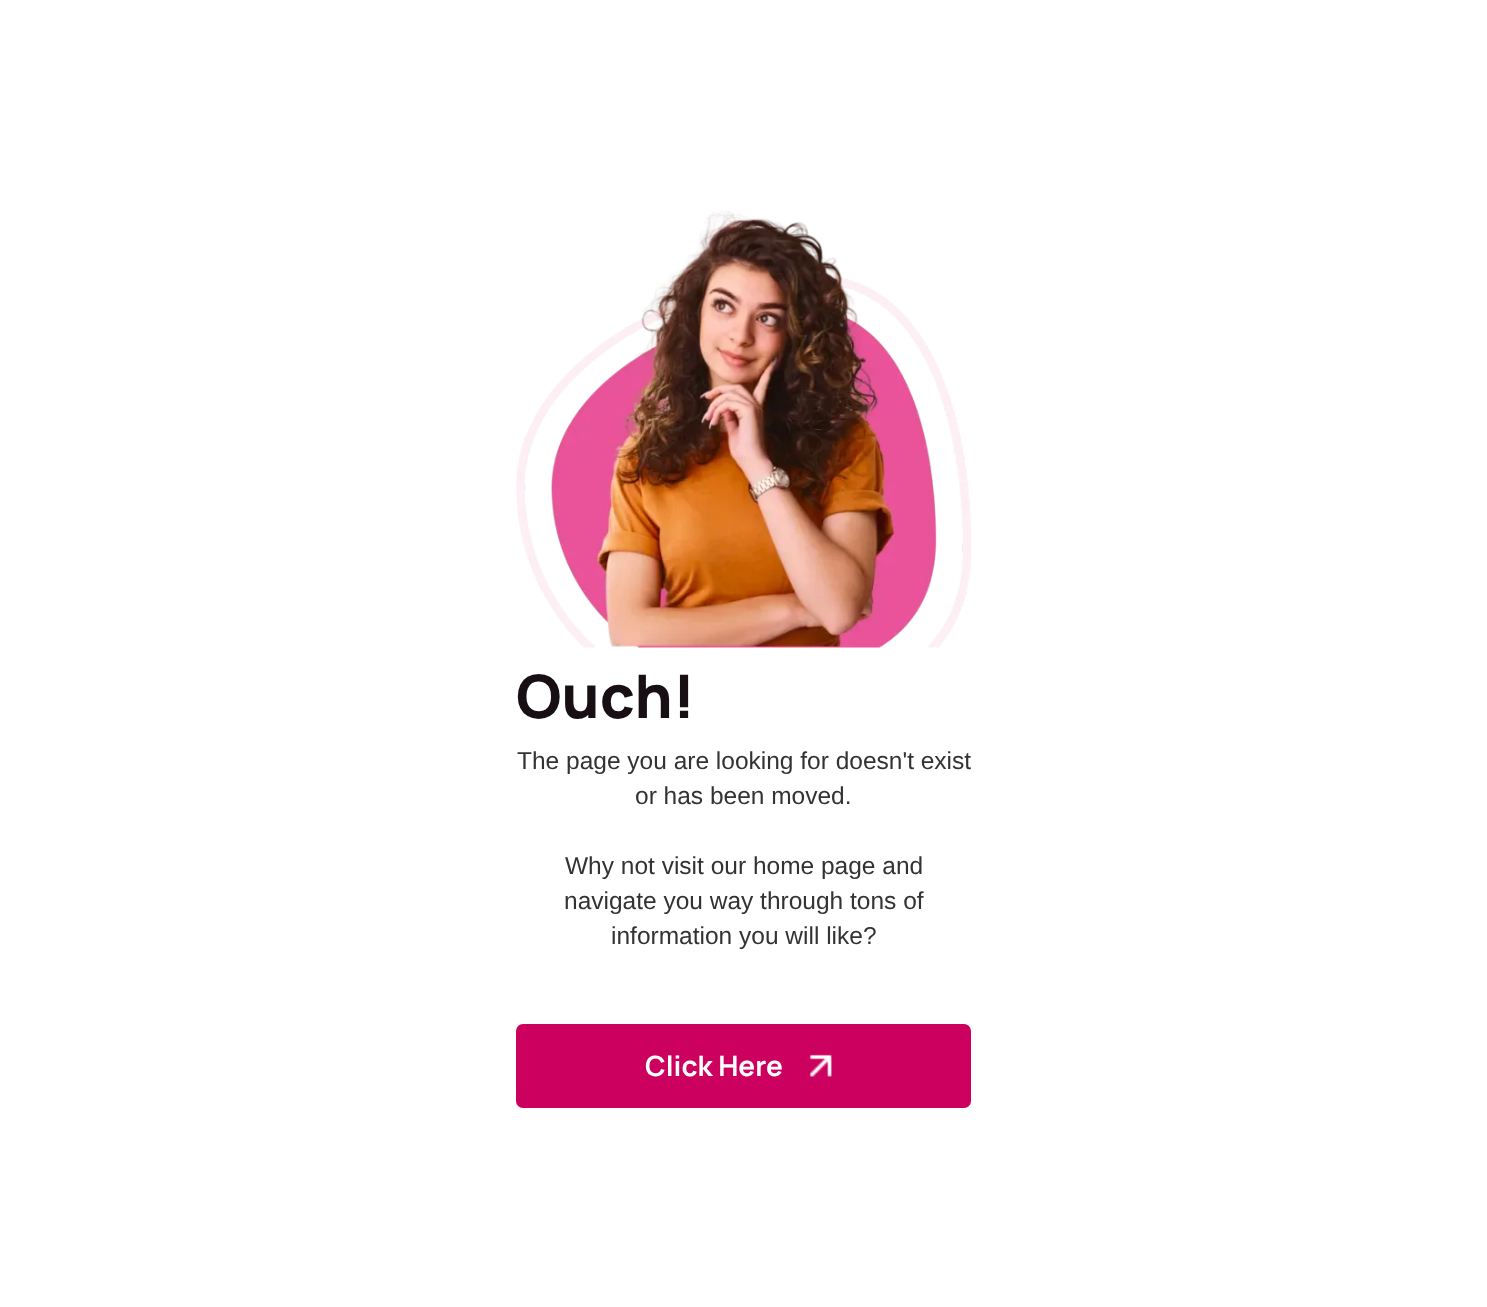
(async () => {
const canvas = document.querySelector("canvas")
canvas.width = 1487
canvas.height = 1307
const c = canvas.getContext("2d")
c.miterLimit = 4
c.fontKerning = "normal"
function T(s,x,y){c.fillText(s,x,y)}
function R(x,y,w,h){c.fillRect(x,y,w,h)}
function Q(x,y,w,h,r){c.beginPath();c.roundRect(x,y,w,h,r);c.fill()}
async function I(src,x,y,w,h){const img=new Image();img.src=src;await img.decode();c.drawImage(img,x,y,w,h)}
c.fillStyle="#fff"
R(0,0,1487,1307)
await I("1.png",516,210,456,438)
c.font="800 60px Manrope"
c.fillStyle="#170f13"
T("Ouch!",516,718)
c.font="24.5px Liberation Sans"
c.fillStyle="#333"
T("The page you are looking for doesn't exist",517,769)
T("or has been moved.",635,804)
T("Why not visit our home page and",565,874)
T("navigate you way through tons of",564,909)
T("information you will like?",611,944)
c.fillStyle="#cc005f"
Q(516,1024,455,84,7)
c.font="bold 28px Manrope"
c.fillStyle="#fff"
T("Click Here",645,1076)
await I("2.png",809,1054,23,23)
})()
